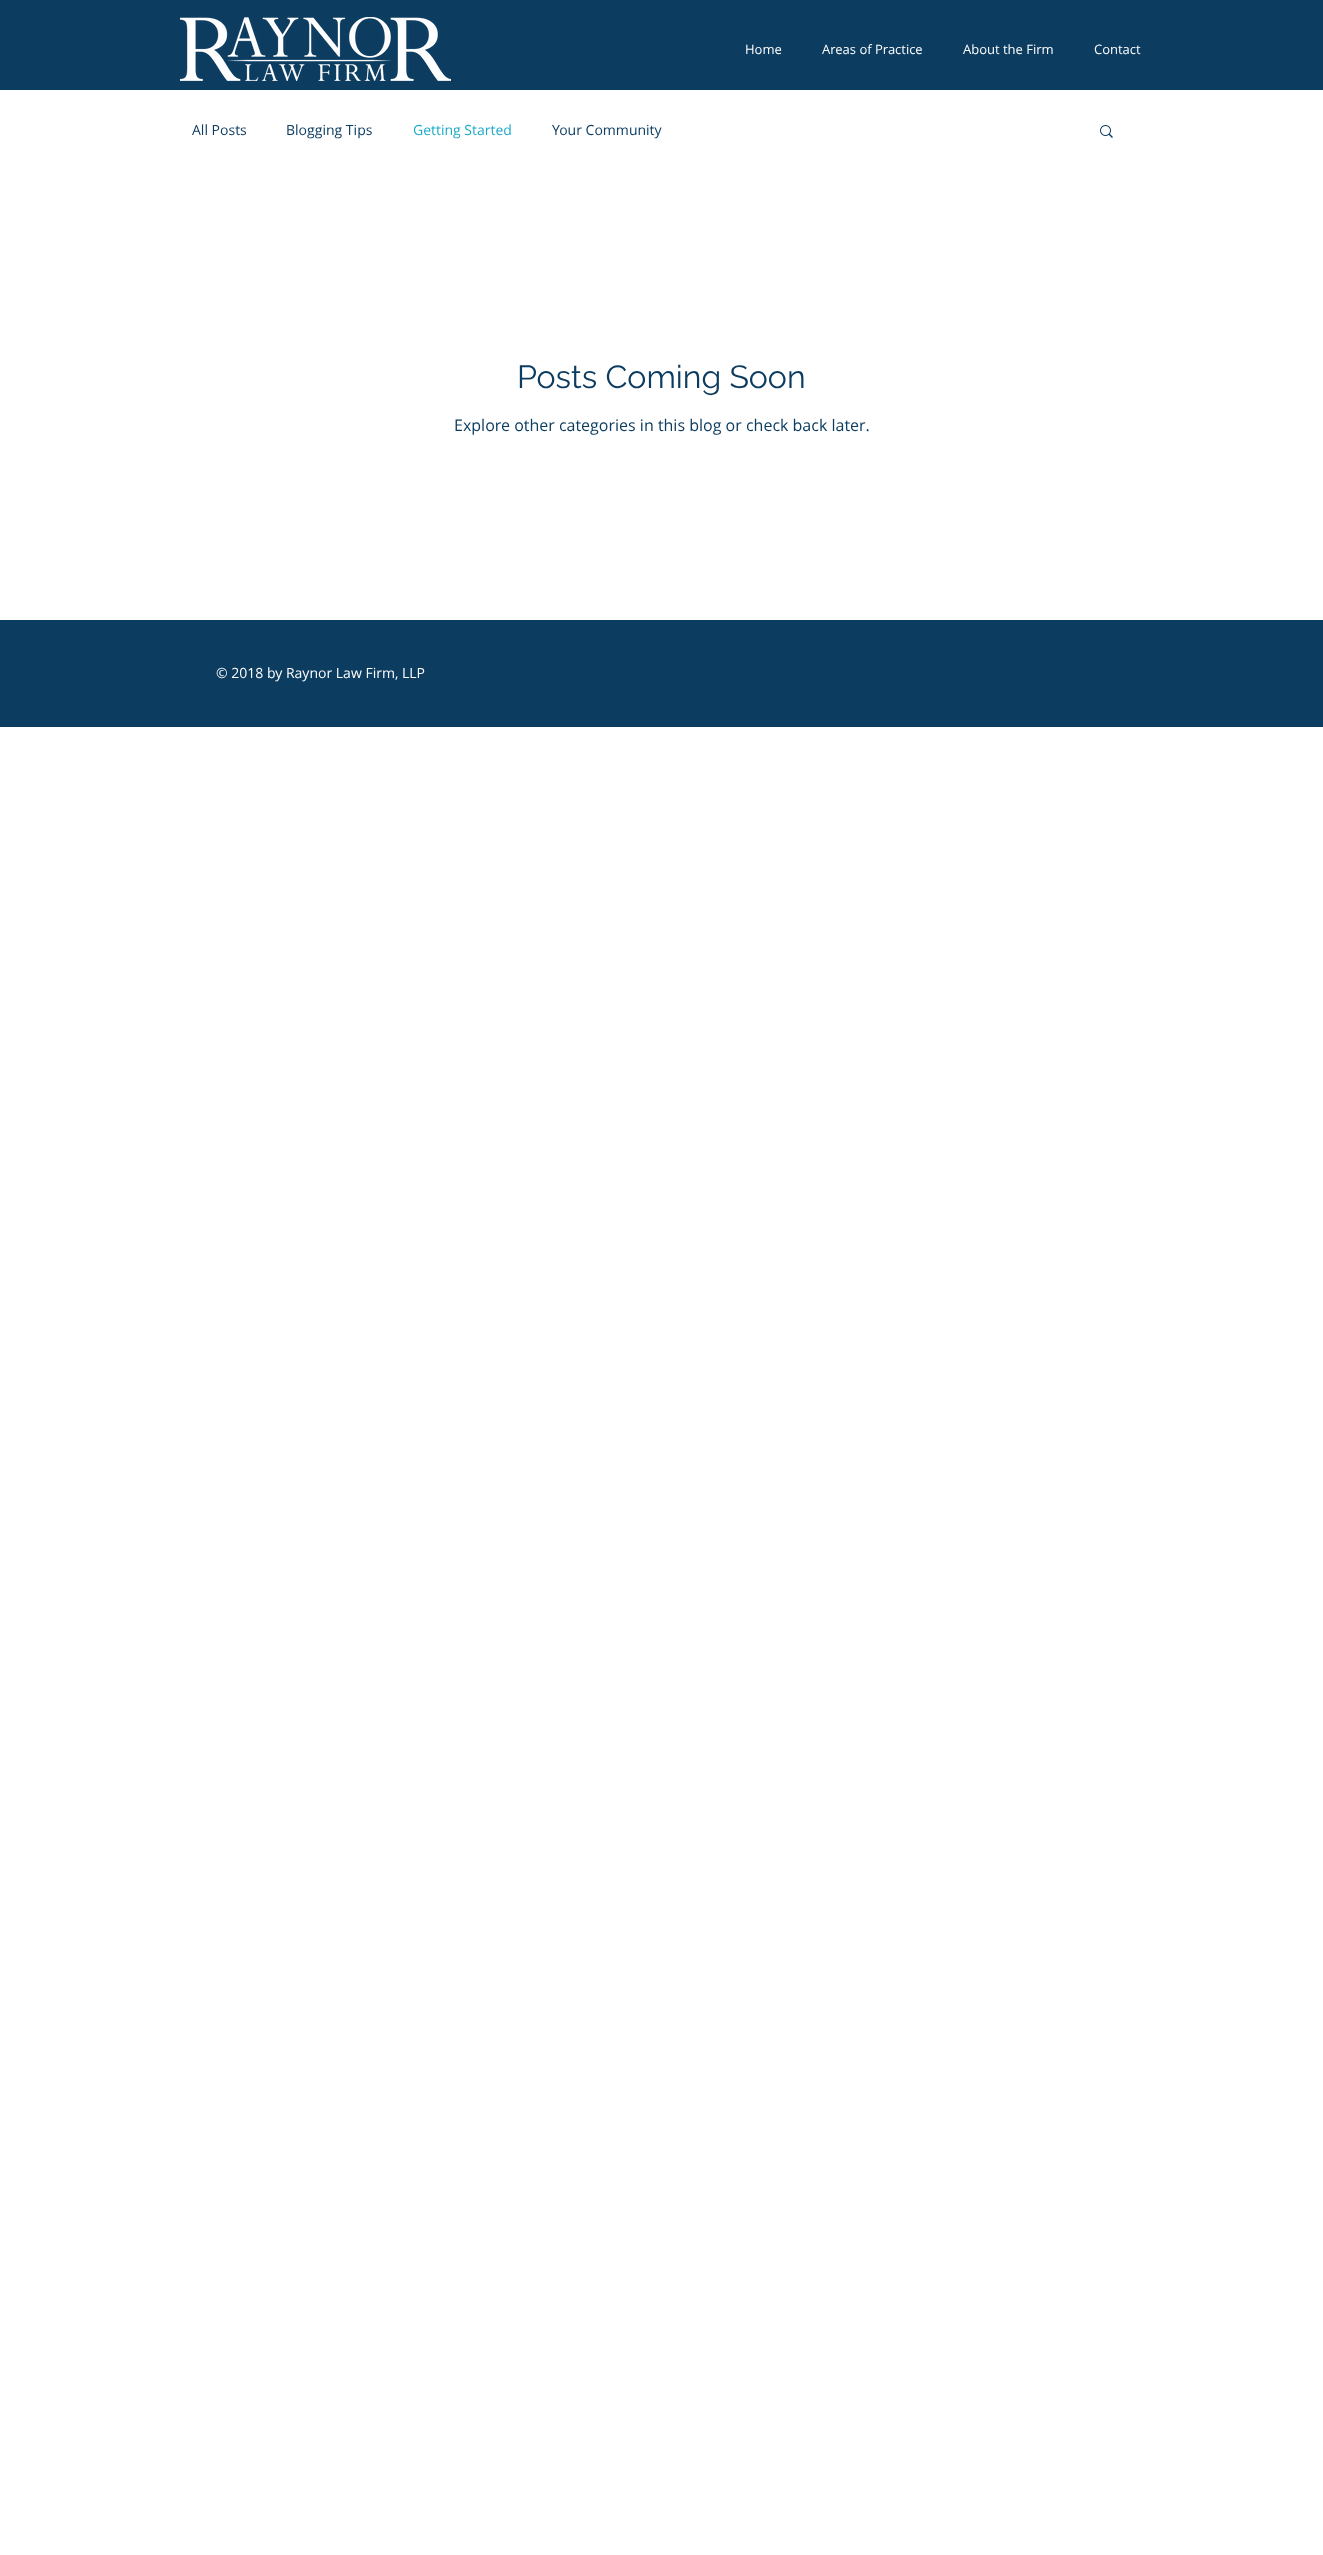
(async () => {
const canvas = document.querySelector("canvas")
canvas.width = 1323
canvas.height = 2555
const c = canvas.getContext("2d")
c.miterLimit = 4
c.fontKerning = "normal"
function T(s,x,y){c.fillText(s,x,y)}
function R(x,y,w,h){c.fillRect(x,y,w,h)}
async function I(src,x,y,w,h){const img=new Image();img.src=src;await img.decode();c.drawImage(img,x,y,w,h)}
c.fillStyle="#fff"
R(0,0,1323,2555)
c.fillStyle="#0c3c60"
R(0,0,1323,90)
await I("1.png",180,17,271,64)
c.font="13px Open Sans"
c.fillStyle="#fff"
T("Home",745,54)
T("Areas of Practice",822,54)
T("About the Firm",963,54)
T("Contact",1094,54)
c.font="14px Open Sans"
c.fillStyle="#0c3c60"
T("All Posts",192,135)
T("Blogging Tips",286,135)
c.fillStyle="#1eabc7"
T("Getting Started",413,135)
c.fillStyle="#0c3c60"
T("Your Community",552,135)
await I("2.png",1100,125,13,13)
c.font="32px Raleway"
T("Posts Coming Soon",517,388)
c.font="16px Open Sans"
T("Explore other categories in this blog or check back later.",454,431)
R(0,620,1323,107)
c.font="14px Open Sans"
c.fillStyle="#fff"
T("© 2018 by Raynor Law Firm, LLP",216,678)
})()
